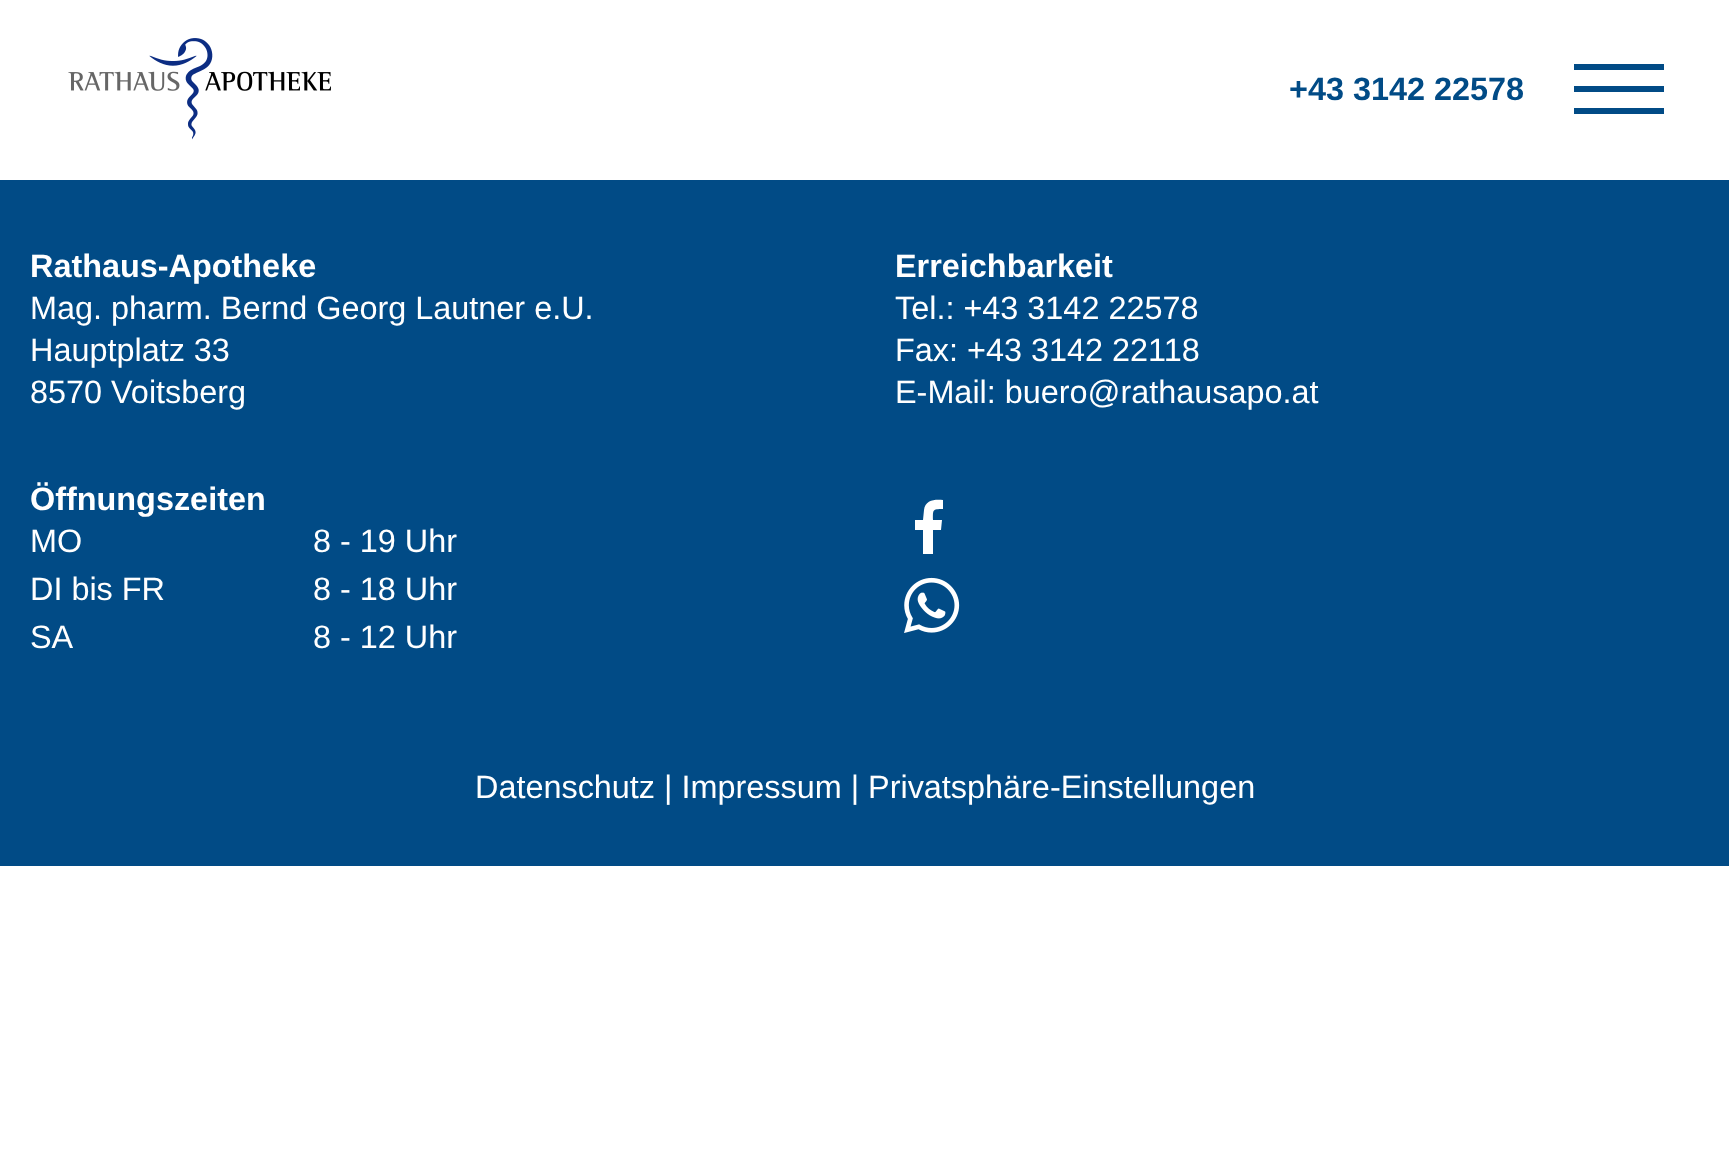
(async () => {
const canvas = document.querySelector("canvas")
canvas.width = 1729
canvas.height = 1170
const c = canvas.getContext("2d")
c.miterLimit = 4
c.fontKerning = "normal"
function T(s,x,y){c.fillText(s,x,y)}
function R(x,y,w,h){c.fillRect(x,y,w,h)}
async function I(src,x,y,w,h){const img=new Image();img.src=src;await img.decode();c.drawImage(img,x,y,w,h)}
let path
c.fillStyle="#fff"
R(0,0,1729,1170)
await I("1.png",68,38,263,102)
c.font="bold 32.4px Liberation Sans"
c.fillStyle="#014b86"
T("+43 3142 22578",1289,100)
R(1574,64,90,6)
R(1574,86,90,6)
R(1574,108,90,6)
R(0,180,1729,686)
c.fillStyle="#fff"
T("Rathaus-Apotheke",30,277)
c.font="32.4px Liberation Sans"
T("Mag. pharm. Bernd Georg Lautner e.U.",30,319)
T("Hauptplatz 33",30,361)
T("8570 Voitsberg",30,403)
c.font="bold 32.4px Liberation Sans"
T("Erreichbarkeit",895,277)
c.font="32.4px Liberation Sans"
T("Tel.: +43 3142 22578",895,319)
T("Fax: +43 3142 22118",895,361)
T("E-Mail: buero@rathausapo.at",895,403)
c.font="bold 32.4px Liberation Sans"
T("Öffnungszeiten",30,510)
c.font="32.4px Liberation Sans"
T("MO",30,552)
T("8 - 19 Uhr",313,552)
T("DI bis FR",30,600)
T("8 - 18 Uhr",313,600)
T("SA",30,648)
T("8 - 12 Uhr",313,648)
path = new Path2D("M923 554v-24h-8v-10h8l1-10c1-10 11-11 19-10v9c-11 0-10 1-10 11h9l-1 10h-8v24")
c.fill(path)
await I("2.png",904,577,56,56)
T("Datenschutz | Impressum | Privatsphäre-Einstellungen",475,798)
})()
